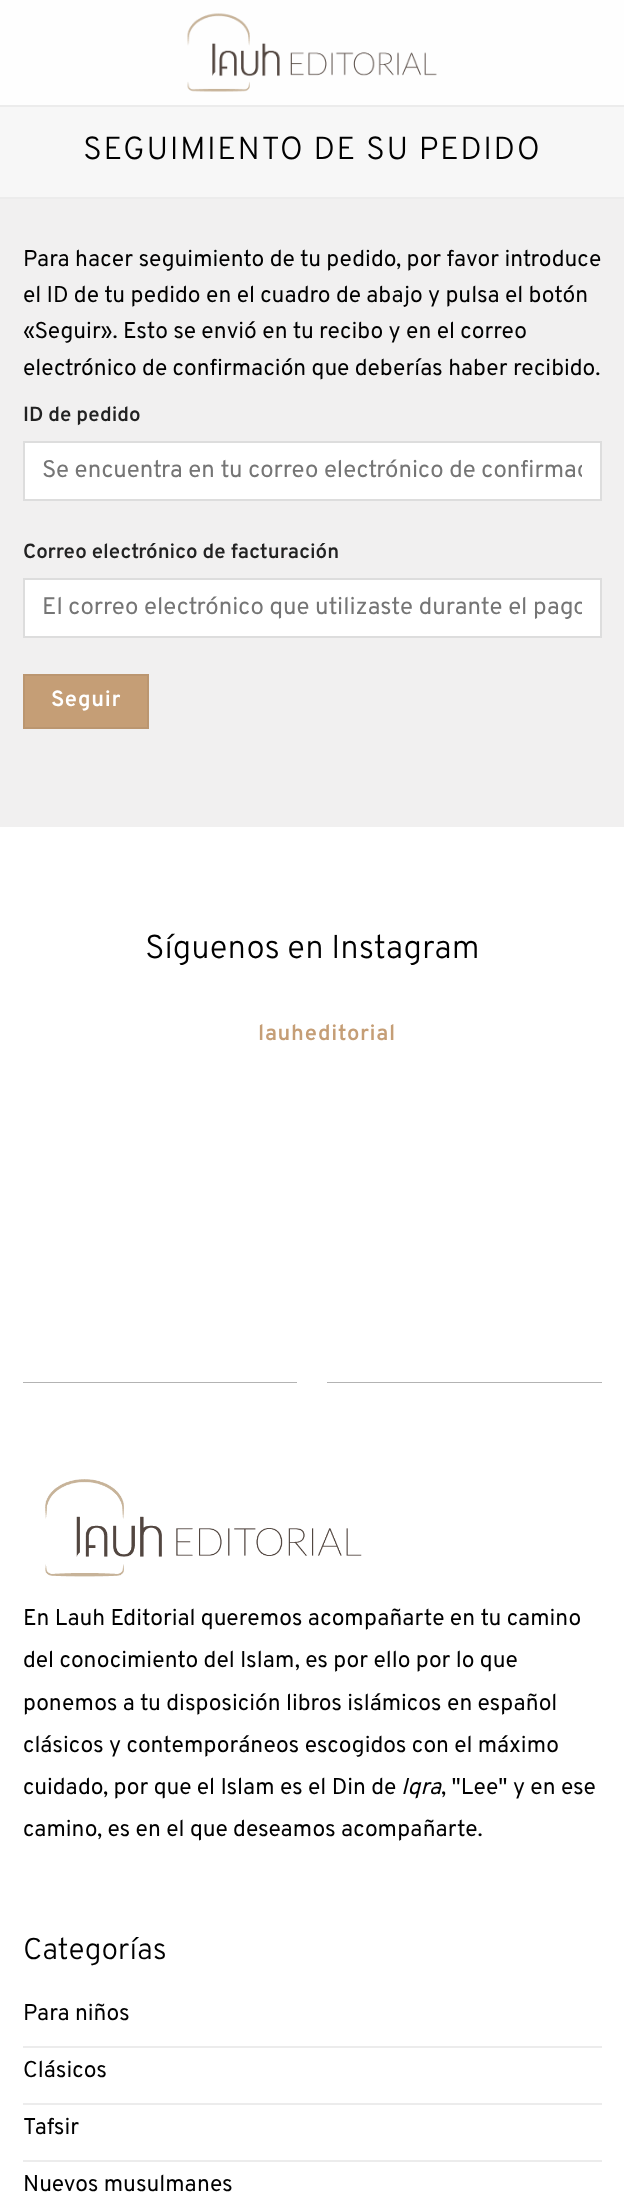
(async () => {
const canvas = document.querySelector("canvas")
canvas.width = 624
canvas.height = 2205
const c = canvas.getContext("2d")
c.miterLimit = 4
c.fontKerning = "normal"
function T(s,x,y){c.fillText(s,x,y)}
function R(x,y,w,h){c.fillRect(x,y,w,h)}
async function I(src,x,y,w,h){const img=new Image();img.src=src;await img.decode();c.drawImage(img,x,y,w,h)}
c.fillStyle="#f1f0f0"
R(0,0,624,2205)
c.fillStyle="#fefefe"
R(0,0,624,105)
await I("1.png",187,13,250,79)
c.fillStyle="#f7f7f7"
R(0,107,624,90)
c.fillStyle="#ececec"
R(0,105,624,2)
R(0,197,624,2)
c.letterSpacing="1.6px"
c.font="300 31.9px Overpass"
c.fillStyle="#000"
T("SEGUIMIENTO DE SU PEDIDO",83,159)
c.letterSpacing="0px"
c.font="22.8px Overpass"
T("Para hacer seguimiento de tu pedido, por favor introduce",23,266)
T("el ID de tu pedido en el cuadro de abajo y pulsa el botón",23,302)
T("«Seguir». Esto se envió en tu recibo y en el correo",23,338)
T("electrónico de confirmación que deberías haber recibido.",23,375)
c.font="600 20.5px Overpass"
c.fillStyle="#222"
T("ID de pedido",23,421)
c.fillStyle="#fff"
c.beginPath()
c.rect(24,442,577,58)
c.fill()
c.strokeStyle="#ddd"
c.lineWidth=2
c.stroke()
c.save()
c.beginPath()
c.rect(42,456,540,30)
c.clip()
c.font="24px Overpass"
c.fillStyle="#757575"
T("Se encuentra en tu correo electrónico de confirmac",42,477)
c.restore()
c.fillStyle="#222"
T("Correo electrónico de facturación",23,558)
c.fillStyle="#fff"
c.beginPath()
c.rect(24,579,577,58)
c.fill()
c.stroke()
c.save()
c.beginPath()
c.rect(42,593,540,30)
c.clip()
c.font="24px Overpass"
c.fillStyle="#757575"
T("El correo electrónico que utilizaste durante el pago",42,614)
c.restore()
c.fillStyle="#c59e76"
c.beginPath()
c.rect(24,675,124,53)
c.fill()
c.strokeStyle="#bb9670"
c.stroke()
c.letterSpacing="0.7px"
c.font="600 22px Overpass"
c.fillStyle="#fff"
T("Seguir",51,706)
R(0,827,624,1378)
c.letterSpacing="0px"
c.font="300 33px Overpass"
c.fillStyle="#000"
T("Síguenos en Instagram",145,958)
c.letterSpacing="0.7px"
c.font="600 22px Overpass"
c.fillStyle="#c59e76"
T("lauheditorial",258,1040)
c.fillStyle="#b3b3b3"
R(23,1382,274,1)
R(327,1382,275,1)
await I("2.png",45,1479,317,98)
c.letterSpacing="0px"
c.font="22.8px Overpass"
c.fillStyle="#000"
T("En Lauh Editorial queremos acompañarte en tu camino",23,1625)
T("del conocimiento del Islam, es por ello por lo que",23,1667)
T("ponemos a tu disposición libros islámicos en español",23,1710)
T("clásicos y contemporáneos escogidos con el máximo",23,1752)
T("cuidado, por que el Islam es el Din de",23,1794)
c.font="italic 22.8px Overpass"
T("Iqra",401,1794)
c.font="22.8px Overpass"
T(", \"Lee\" y en ese",441,1794)
T("camino, es en el que deseamos acompañarte.",23,1836)
c.font="300 30px Overpass"
T("Categorías",23,1959)
c.fillStyle="#ececec"
R(23,2046,579,2)
c.font="22.8px Overpass"
c.fillStyle="#000"
T("Para niños",23,2020)
c.fillStyle="#ececec"
R(23,2103,579,2)
c.fillStyle="#000"
T("Clásicos",23,2077)
c.fillStyle="#ececec"
R(23,2160,579,2)
c.fillStyle="#000"
T("Tafsir",23,2134)
T("Nuevos musulmanes",23,2191)
})()
